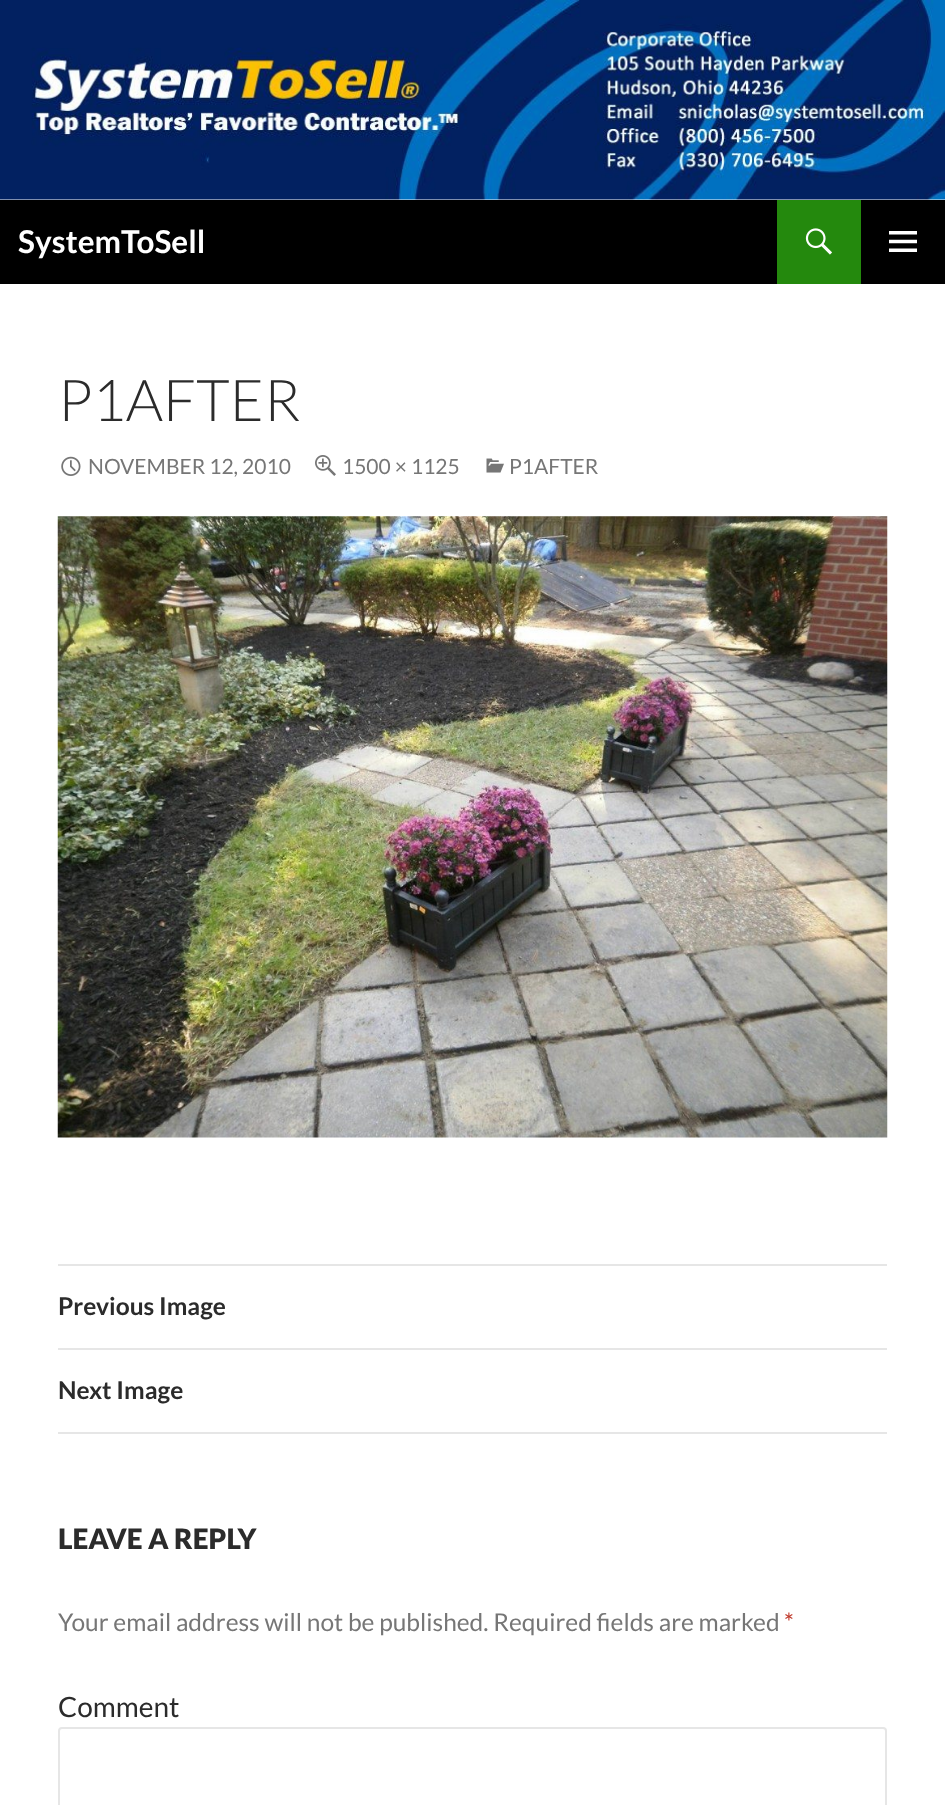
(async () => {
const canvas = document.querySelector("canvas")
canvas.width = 945
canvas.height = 1805
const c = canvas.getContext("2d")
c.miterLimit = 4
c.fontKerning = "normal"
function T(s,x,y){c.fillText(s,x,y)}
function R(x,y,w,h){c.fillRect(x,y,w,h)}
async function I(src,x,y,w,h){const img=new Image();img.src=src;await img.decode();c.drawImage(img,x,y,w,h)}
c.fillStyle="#fff"
R(0,0,945,1805)
await I("1.png",0,0,945,200)
c.fillStyle="#000"
R(0,200,945,84)
c.font="bold 31.5px Lato"
c.fillStyle="#fff"
T("SystemToSell",18,253)
c.fillStyle="#24890d"
R(777,200,84,84)
await I("2.png",805,228,27,27)
await I("3.png",889,231,28,21)
c.font="300 57.75px Lato"
c.fillStyle="#2b2b2b"
T("P1AFTER",58,421)
await I("4.png",61,456,20,20)
c.font="21px Lato"
c.fillStyle="#767676"
T("NOVEMBER 12, 2010",88,474)
await I("5.png",315,455,21,21)
T("1500 × 1125",342,474)
await I("6.png",486,458,18,15)
T("P1AFTER",509,474)
await I("7.png",57,516,831,622)
c.fillStyle="#e6e6e6"
R(58,1264,829,2)
R(58,1348,829,2)
c.font="bold 24.5px Lato"
c.fillStyle="#2b2b2b"
T("Previous Image",58,1315)
c.fillStyle="#e6e6e6"
R(58,1432,829,2)
c.fillStyle="#2b2b2b"
T("Next Image",58,1399)
c.font="900 28px Lato"
T("LEAVE A REPLY",58,1549)
c.font="24.5px Lato"
c.fillStyle="#767676"
T("Your email address will not be published. Required fields are marked",58,1631)
c.fillStyle="#c0392b"
T("*",784,1631)
c.font="28px Lato"
c.fillStyle="#2b2b2b"
T("Comment",58,1717)
c.beginPath()
c.roundRect(59,1728,827,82,3)
c.strokeStyle="#e6e6e6"
c.lineWidth=2
c.stroke()
})()
